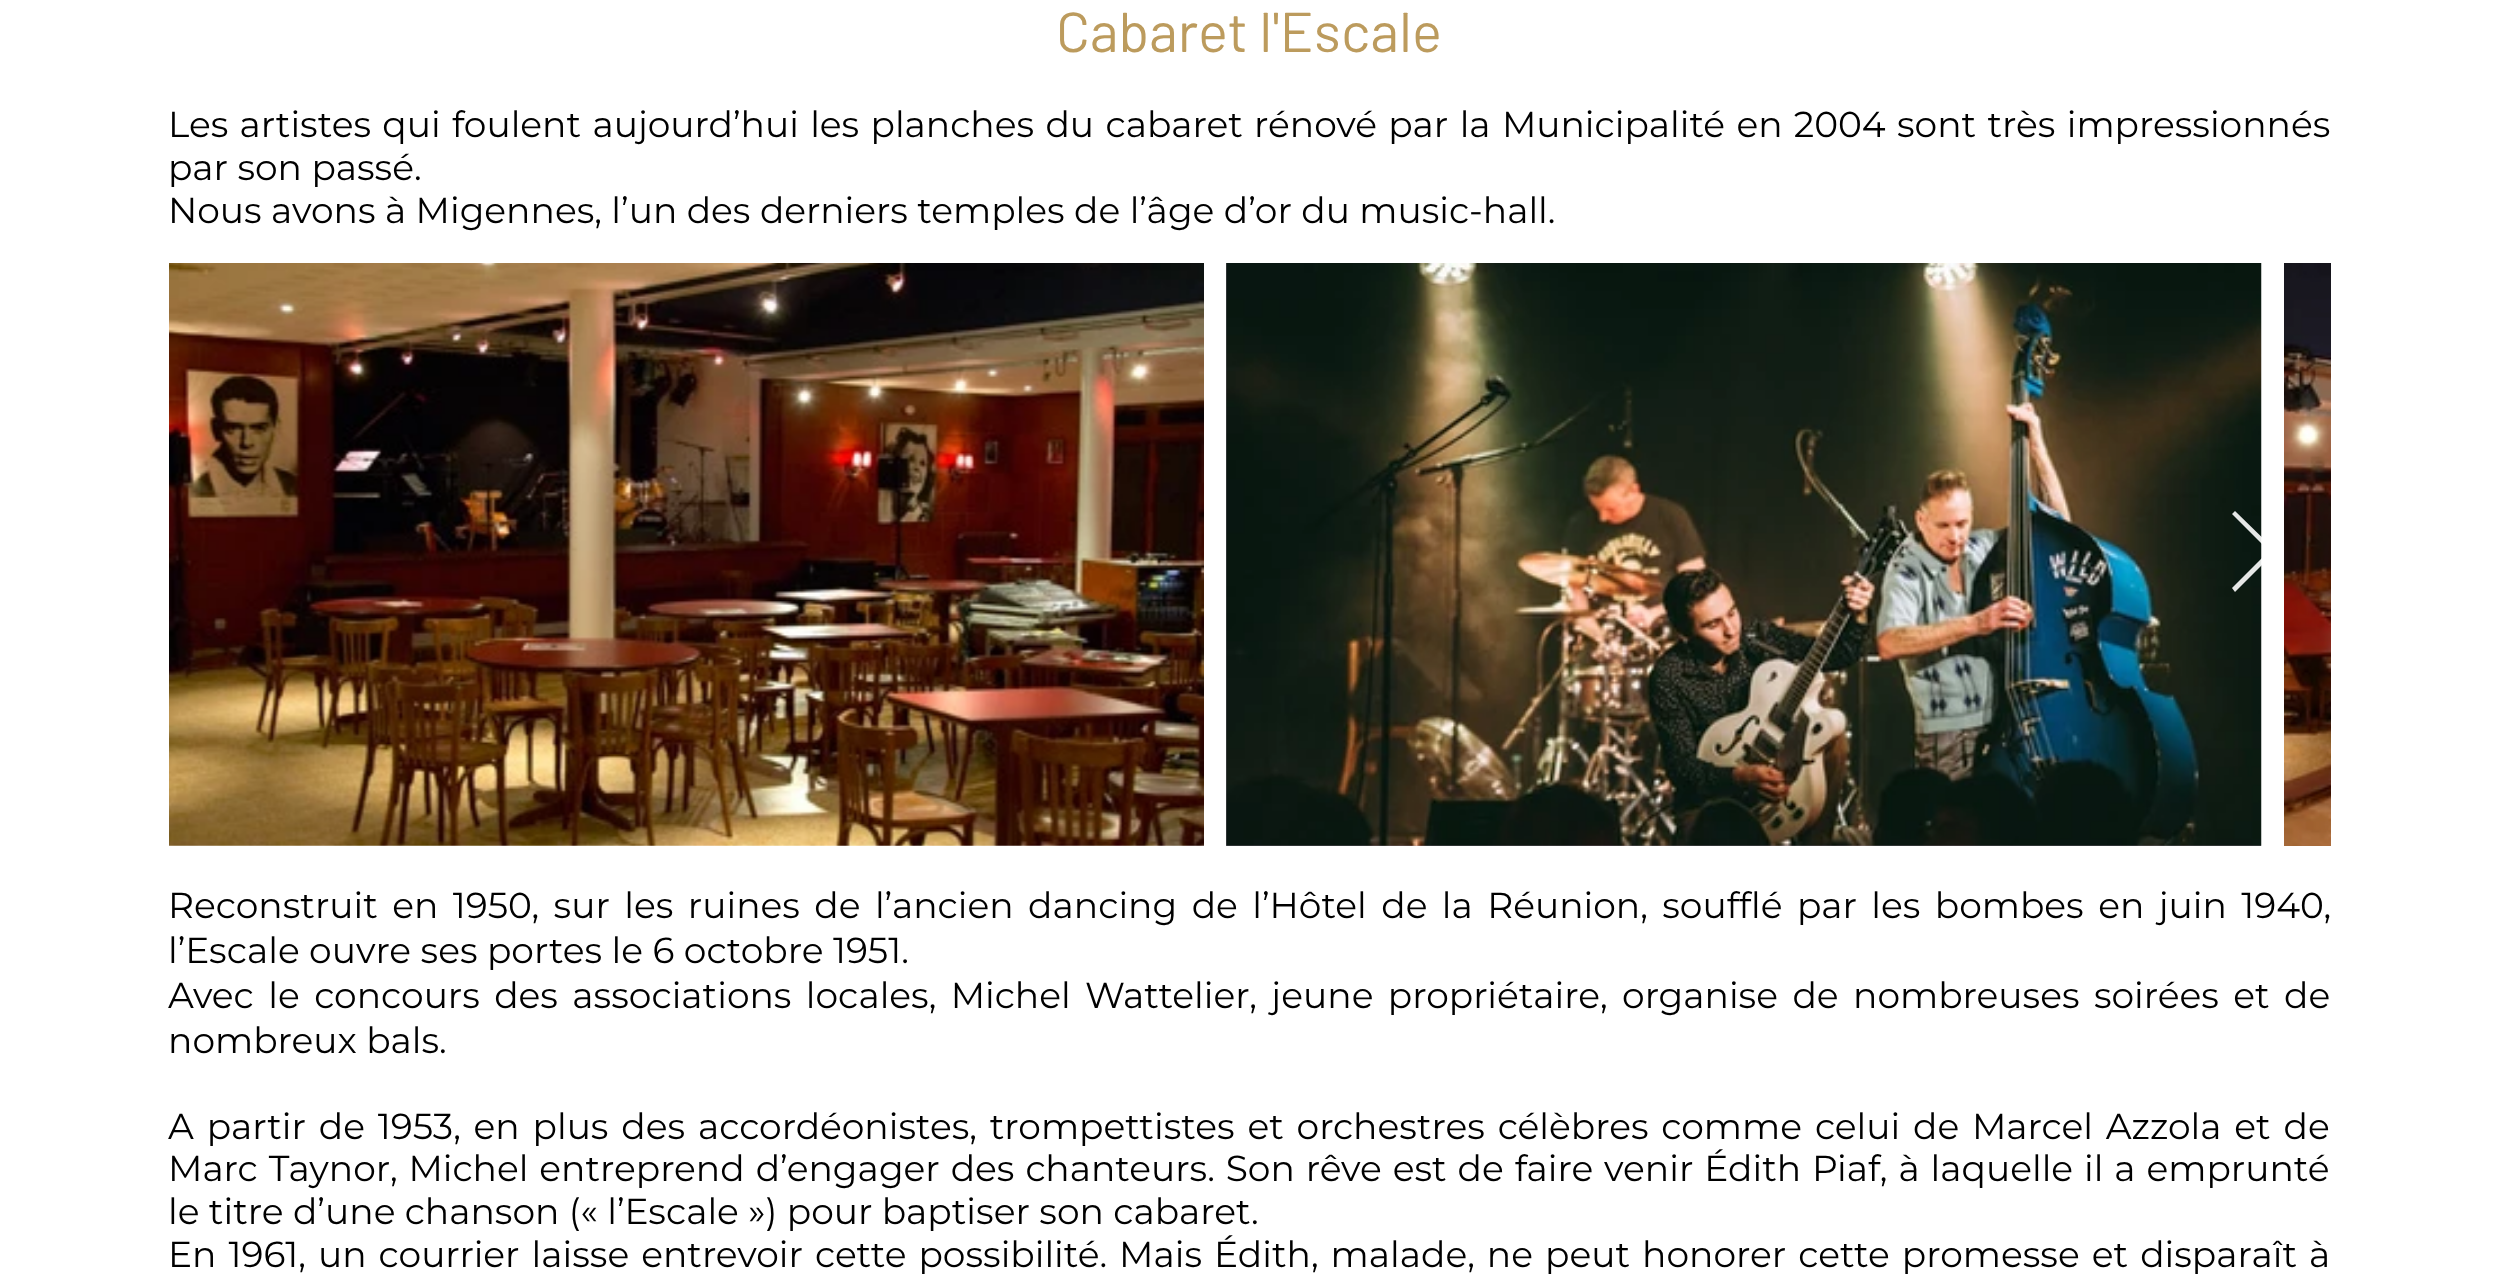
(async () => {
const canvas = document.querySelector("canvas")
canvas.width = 2499
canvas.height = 1279
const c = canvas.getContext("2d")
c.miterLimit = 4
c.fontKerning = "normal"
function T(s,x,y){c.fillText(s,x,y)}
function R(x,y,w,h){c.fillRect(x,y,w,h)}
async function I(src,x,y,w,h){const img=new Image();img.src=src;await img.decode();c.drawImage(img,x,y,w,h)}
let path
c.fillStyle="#fff"
R(0,0,2499,1279)
c.font="56.25px Barlow"
c.fillStyle="#bc9b5d"
T("Cabaret l'Escale",1056,52)
c.wordSpacing="1.9px"
c.font="36px Montserrat"
c.fillStyle="#000"
T("Les artistes qui foulent aujourd’hui les planches du cabaret rénové par la Municipalité en 2004 sont très impressionnés",168,137)
c.wordSpacing="0px"
T("par son passé.",168,180)
T("Nous avons à Migennes, l’un des derniers temples de l’âge d’or du music-hall.",168,223)
await I("1.png",169,263,1035,583)
c.fillStyle="#a08fa6"
R(1226,263,1035,583)
await I("2.png",1226,263,1036,583)
await I("3.png",2284,263,47,583)
c.fillStyle="#ffffffe6"
path = new Path2D("M2232 514l3-3l41 40l-41 41l-3-4l37-37z")
c.fill(path)
c.wordSpacing="5px"
c.fillStyle="#000"
T("Reconstruit en 1950, sur les ruines de l’ancien dancing de l’Hôtel de la Réunion, soufflé par les bombes en juin 1940,",168,918)
c.wordSpacing="0px"
T("l’Escale ouvre ses portes le 6 octobre 1951.",168,963)
c.wordSpacing="5px"
T("Avec le concours des associations locales, Michel Wattelier, jeune propriétaire, organise de nombreuses soirées et de",168,1008)
c.wordSpacing="0px"
T("nombreux bals.",168,1053)
c.wordSpacing="3.4px"
T("A partir de 1953, en plus des accordéonistes, trompettistes et orchestres célèbres comme celui de Marcel Azzola et de",168,1139)
c.wordSpacing="1.5px"
T("Marc Taynor, Michel entreprend d’engager des chanteurs. Son rêve est de faire venir Édith Piaf, à laquelle il a emprunté",168,1181)
c.wordSpacing="0px"
T("le titre d’une chanson (« l’Escale ») pour baptiser son cabaret.",168,1224)
c.wordSpacing="2.6px"
T("En 1961, un courrier laisse entrevoir cette possibilité. Mais Édith, malade, ne peut honorer cette promesse et disparaît à",168,1267)
})()
